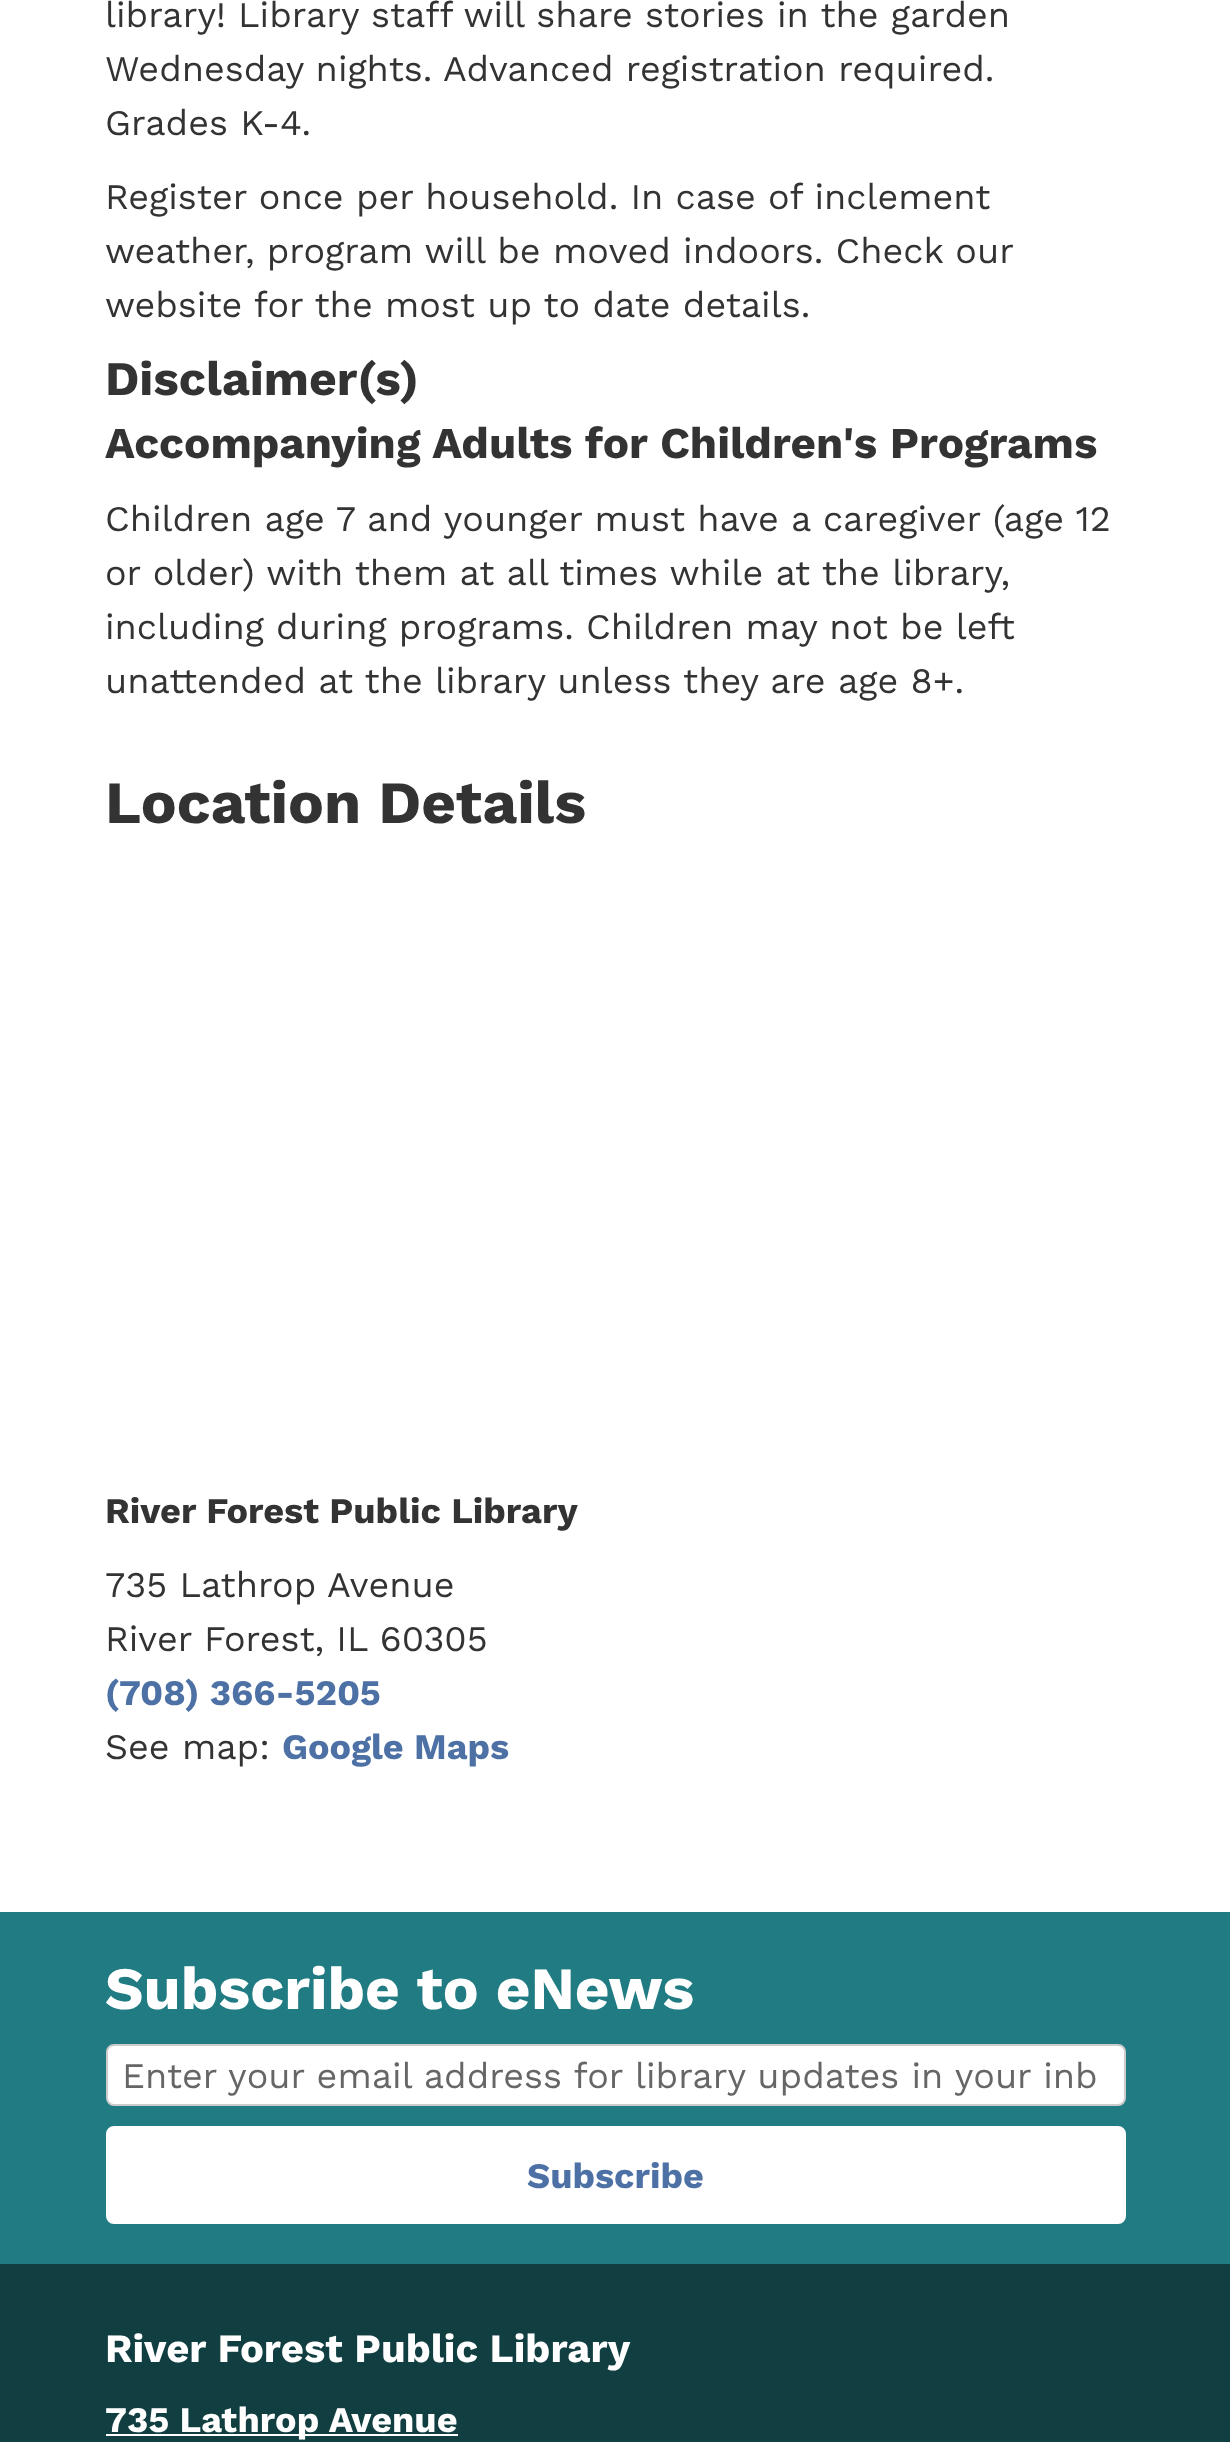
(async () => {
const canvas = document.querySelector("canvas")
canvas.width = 1230
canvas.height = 2442
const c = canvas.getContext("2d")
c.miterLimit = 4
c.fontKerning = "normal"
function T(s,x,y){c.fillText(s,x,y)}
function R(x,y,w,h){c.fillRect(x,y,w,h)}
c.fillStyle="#fff"
R(0,0,1230,2442)
c.font="36px Work Sans"
c.fillStyle="#333"
T("library! Library staff will share stories in the garden",105,27)
T("Wednesday nights. Advanced registration required.",105,81)
T("Grades K-4.",105,135)
T("Register once per household. In case of inclement",105,209)
T("weather, program will be moved indoors. Check our",105,263)
T("website for the most up to date details.",105,317)
c.font="bold 48px Work Sans"
T("Disclaimer(s)",105,395)
c.font="bold 44px Work Sans"
T("Accompanying Adults for Children's Programs",105,458)
c.font="36px Work Sans"
T("Children age 7 and younger must have a caregiver (age 12",105,531)
T("or older) with them at all times while at the library,",105,585)
T("including during programs. Children may not be left",105,639)
T("unattended at the library unless they are age 8+.",105,693)
c.font="bold 60px Work Sans"
T("Location Details",105,823)
c.font="bold 36px Work Sans"
T("River Forest Public Library",105,1523)
c.font="36px Work Sans"
T("735 Lathrop Avenue",105,1597)
T("River Forest, IL 60305",105,1651)
c.font="bold 36px Work Sans"
c.fillStyle="#4d71a5"
T("(708) 366-5205",105,1705)
c.font="36px Work Sans"
c.fillStyle="#333"
T("See map:",105,1759)
c.font="bold 36px Work Sans"
c.fillStyle="#4d71a5"
T("Google Maps",282,1759)
c.fillStyle="#207b82"
R(0,1912,1230,352)
c.font="bold 60px Work Sans"
c.fillStyle="#fff"
T("Subscribe to eNews",105,2009)
c.beginPath()
c.roundRect(107,2045,1018,60,7)
c.fill()
c.strokeStyle="#ccc"
c.lineWidth=2
c.stroke()
c.font="36px Work Sans"
c.fillStyle="#666"
T("Enter your email address for library updates in your inb",122,2088)
c.fillStyle="#fff"
c.beginPath()
c.roundRect(107,2127,1018,96,7)
c.fill()
c.strokeStyle="#fff"
c.stroke()
c.font="bold 36px Work Sans"
c.fillStyle="#4d71a5"
T("Subscribe",527,2188)
c.fillStyle="#103e41"
R(0,2264,1230,178)
c.font="bold 40px Work Sans"
c.fillStyle="#fff"
T("River Forest Public Library",105,2362)
R(106,2434,352,2)
c.font="bold 36px Work Sans"
T("735 Lathrop Avenue",105,2432)
})()
